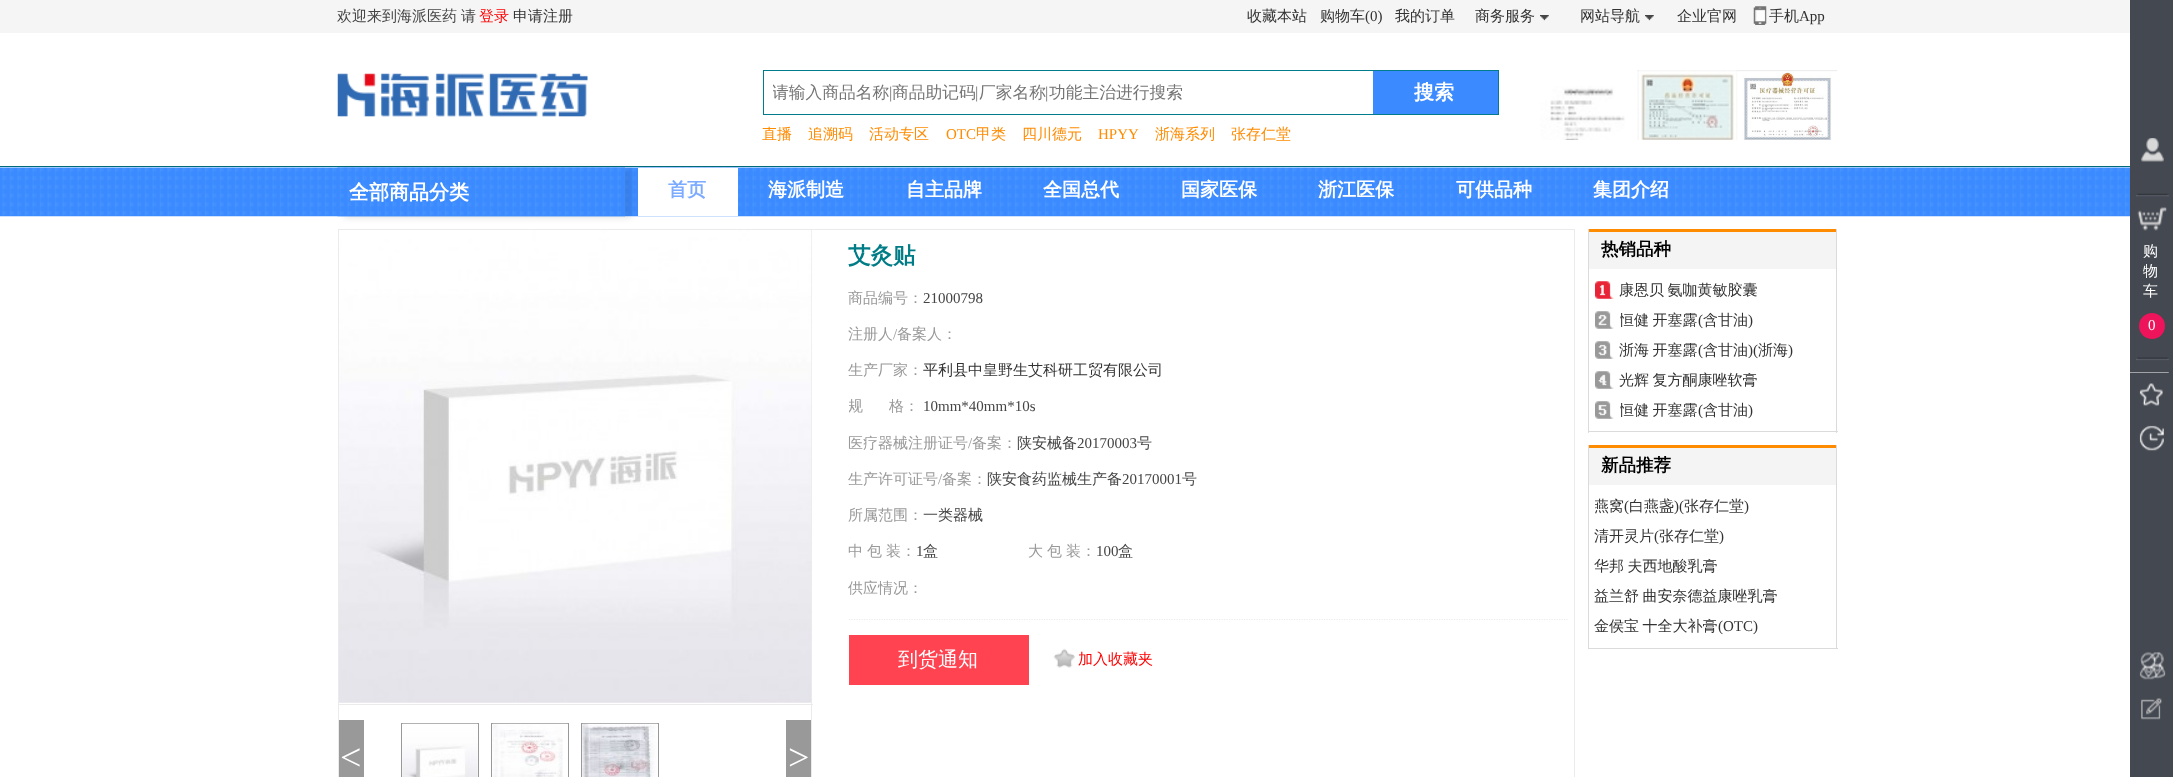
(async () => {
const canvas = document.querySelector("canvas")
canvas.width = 2173
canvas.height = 777
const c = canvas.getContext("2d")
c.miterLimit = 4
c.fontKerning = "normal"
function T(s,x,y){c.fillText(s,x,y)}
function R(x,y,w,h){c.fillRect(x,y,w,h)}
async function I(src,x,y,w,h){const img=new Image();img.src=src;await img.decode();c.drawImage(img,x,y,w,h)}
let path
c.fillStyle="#fff"
R(0,0,2173,777)
c.fillStyle="#f5f5f5"
R(0,0,2130,33)
c.font="500 15px WenQuanYi Zen Hei"
c.fillStyle="#454545"
T("欢迎来到海派医药",337,21)
T("请",461,21)
c.fillStyle="#f00"
T("登录",479,21)
c.fillStyle="#323232"
T("申请注册",513,21)
T("收藏本站",1247,21)
T("购物车",1320,21)
c.font="15px Liberation Serif"
T("(0)",1365,21)
c.font="500 15px WenQuanYi Zen Hei"
T("我的订单",1395,21)
await I("1.png",1540,15,9,6)
T("商务服务",1475,21)
await I("2.png",1645,15,9,6)
T("网站导航",1580,21)
T("企业官网",1677,21)
await I("3.png",1753,6,14,19)
T("手机",1769,21)
c.font="15px Liberation Serif"
T("App",1799,21)
await I("4.png",337,73,251,44)
c.strokeStyle="#007c8c"
c.strokeRect(763.5,70.5,735,44)
c.save()
c.beginPath()
c.rect(773,81,591,23)
c.clip()
c.font="500 16.75px WenQuanYi Zen Hei"
c.fillStyle="#757575"
T("请输入商品名称",772,98)
c.restore()
c.font="16.75px Liberation Serif"
c.fillStyle="#757575"
T("|",889,98)
c.font="500 16.75px WenQuanYi Zen Hei"
T("商品助记码",892,98)
c.font="16.75px Liberation Serif"
T("|",975,98)
c.font="500 16.75px WenQuanYi Zen Hei"
T("厂家名称",979,98)
c.font="16.75px Liberation Serif"
T("|",1045,98)
c.font="500 16.75px WenQuanYi Zen Hei"
T("功能主治进行搜索",1049,98)
c.fillStyle="#3c8aff"
R(1373,71,125,43)
c.font="bold 20px WenQuanYi Zen Hei"
c.fillStyle="#fff"
T("搜索",1414,99)
c.font="500 15px WenQuanYi Zen Hei"
c.fillStyle="#ff8b00"
T("直播",762,139)
T("追溯码",808,139)
T("活动专区",869,139)
c.font="15px Liberation Serif"
T("OTC",946,139)
c.font="500 15px WenQuanYi Zen Hei"
T("甲类",976,139)
T("四川德元",1022,139)
c.font="15px Liberation Serif"
T("HPYY",1098,139)
c.font="500 15px WenQuanYi Zen Hei"
T("浙海系列",1155,139)
T("张存仁堂",1231,139)
await I("5.png",1540,86,85,54)
await I("6.png",1637,70,101,70)
await I("7.png",1737,70,101,70)
await I("8.png",0,167,2130,50)
c.fillStyle="#006c7a"
R(0,166,2130,1)
c.fillStyle="#fff"
R(638,168,100,48)
c.fillStyle="#0000001a"
c.filter="blur(3px)"
c.beginPath()
c.rect(344,169,287,49)
c.fill()
c.filter="none"
await I("9.png",337,167,288,50)
c.font="bold 20px WenQuanYi Zen Hei"
c.fillStyle="#fff"
T("全部商品分类",349,199)
c.font="bold 19px WenQuanYi Zen Hei"
c.fillStyle="#7dabff"
T("首页",668,196)
c.fillStyle="#fff"
T("海派制造",768,196)
T("自主品牌",906,196)
T("全国总代",1043,196)
T("国家医保",1181,196)
T("浙江医保",1318,196)
T("可供品种",1456,196)
T("集团介绍",1593,196)
c.strokeStyle="#ebebeb"
c.strokeRect(338.5,229.5,1236,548)
c.font="bold 22.5px WenQuanYi Zen Hei"
c.fillStyle="#007c86"
T("艾灸贴",848,263)
c.font="500 15px WenQuanYi Zen Hei"
c.fillStyle="#999"
T("商品编号：",848,303)
c.font="15px Liberation Serif"
c.fillStyle="#454545"
T("21000798",923,303)
c.font="500 15px WenQuanYi Zen Hei"
c.fillStyle="#999"
T("注册人",848,339)
c.font="15px Liberation Serif"
T("/",893,339)
c.font="500 15px WenQuanYi Zen Hei"
T("备案人：",897,339)
T("生产厂家：",848,375)
c.fillStyle="#323232"
T("平利县中皇野生艾科研工贸有限公司",923,375)
c.save()
c.beginPath()
c.rect(849,398,75,18)
c.clip()
c.fillStyle="#999"
T("规",848,411)
c.restore()
c.fillStyle="#999"
T("格：",889,411)
c.font="15px Liberation Serif"
c.fillStyle="#454545"
T("10mm*40mm*10s",923,411)
c.font="500 15px WenQuanYi Zen Hei"
c.fillStyle="#999"
T("医疗器械注册证号",848,448)
c.font="15px Liberation Serif"
T("/",968,448)
c.font="500 15px WenQuanYi Zen Hei"
T("备案：",972,448)
c.fillStyle="#454545"
T("陕安械备",1017,448)
c.font="15px Liberation Serif"
T("20170003",1077,448)
c.font="500 15px WenQuanYi Zen Hei"
T("号",1137,448)
c.fillStyle="#999"
T("生产许可证号",848,484)
c.font="15px Liberation Serif"
T("/",938,484)
c.font="500 15px WenQuanYi Zen Hei"
T("备案：",942,484)
c.fillStyle="#454545"
T("陕安食药监械生产备",987,484)
c.font="15px Liberation Serif"
T("20170001",1122,484)
c.font="500 15px WenQuanYi Zen Hei"
T("号",1182,484)
c.fillStyle="#999"
T("所属范围：",848,520)
c.fillStyle="#454545"
T("一类器械",923,520)
c.fillStyle="#999"
T("中",848,556)
T("包",867,556)
T("装：",886,556)
c.font="15px Liberation Serif"
c.fillStyle="#454545"
T("1",916,556)
c.font="500 15px WenQuanYi Zen Hei"
T("盒",923,556)
c.fillStyle="#999"
T("大",1028,556)
T("包",1047,556)
T("装：",1066,556)
c.font="15px Liberation Serif"
c.fillStyle="#454545"
T("100",1096,556)
c.font="500 15px WenQuanYi Zen Hei"
T("盒",1118,556)
c.fillStyle="#999"
T("供应情况：",848,593)
path = new Path2D("M849 619.5h718.5")
c.lineWidth=1.2
c.setLineDash([1.25,1.25])
c.stroke(path)
c.fillStyle="#ff4351"
R(849,635,180,50)
c.font="500 20px WenQuanYi Zen Hei"
c.fillStyle="#fff"
T("到货通知",898,666)
await I("10.png",1053,648,22,20)
c.font="500 15px WenQuanYi Zen Hei"
c.fillStyle="#f00"
T("加入收藏夹",1078,664)
c.fillStyle="#ebebeb"
R(811,230,1,547)
await I("11.png",339,230,473,473)
c.fillStyle="#ebe9ee"
R(339,702,472,1)
c.fillStyle="#ebebeb"
R(339,704,474,1)
c.fillStyle="#999"
R(339,720,25,57)
c.font="38px Liberation Serif"
c.fillStyle="#fff"
T("<",340,770)
await I("12.png",402,744,76,33)
c.strokeStyle="#999"
c.lineWidth=1
c.setLineDash([])
c.strokeRect(401.5,723.5,77,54)
await I("13.png",402,723,76,54)
await I("14.png",492,724,71,53)
c.strokeRect(491.5,723.5,77,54)
await I("15.png",492,723,76,1)
await I("16.png",582,724,1,53)
c.strokeRect(581.5,723.5,77,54)
await I("17.png",582,723,76,54)
c.fillStyle="#999"
R(786,720,25,57)
c.fillStyle="#fff"
T(">",788,770)
c.fillStyle="#dbdbdb"
R(1836,229,1,204)
R(1588,431,250,1)
R(1588,229,1,204)
c.fillStyle="#f4f4f4"
R(1589,232,247,37)
c.fillStyle="#ff8b00"
R(1589,229,247,3)
c.font="bold 17.5px WenQuanYi Zen Hei"
c.fillStyle="#000"
T("热销品种",1601,255)
await I("18.png",1595,281,19,18)
c.wordSpacing="-1px"
c.font="500 15px WenQuanYi Zen Hei"
c.fillStyle="#323232"
T("康恩贝 氨咖黄敏胶囊",1619,295)
await I("19.png",1595,311,19,18)
c.save()
c.beginPath()
c.rect(1620,305,134,30)
c.clip()
T("恒健 开塞露",1619,325)
c.restore()
c.wordSpacing="0px"
c.font="15px Liberation Serif"
T("(",1698,325)
c.font="500 15px WenQuanYi Zen Hei"
T("含甘油",1703,325)
c.font="15px Liberation Serif"
T(")",1748,325)
await I("20.png",1595,341,19,18)
c.wordSpacing="-1px"
c.font="500 15px WenQuanYi Zen Hei"
T("浙海 开塞露",1619,355)
c.wordSpacing="0px"
c.font="15px Liberation Serif"
T("(",1698,355)
c.font="500 15px WenQuanYi Zen Hei"
T("含甘油",1703,355)
c.font="15px Liberation Serif"
T(")(",1748,355)
c.font="500 15px WenQuanYi Zen Hei"
T("浙海",1758,355)
c.font="15px Liberation Serif"
T(")",1788,355)
await I("21.png",1595,371,19,18)
c.wordSpacing="-1px"
c.font="500 15px WenQuanYi Zen Hei"
T("光辉 复方酮康唑软膏",1619,385)
await I("22.png",1595,401,19,18)
c.save()
c.beginPath()
c.rect(1620,395,134,30)
c.clip()
T("恒健 开塞露",1619,415)
c.restore()
c.wordSpacing="0px"
c.font="15px Liberation Serif"
T("(",1698,415)
c.font="500 15px WenQuanYi Zen Hei"
T("含甘油",1703,415)
c.font="15px Liberation Serif"
T(")",1748,415)
c.fillStyle="#dbdbdb"
R(1836,445,1,204)
R(1588,648,250,1)
R(1588,445,1,204)
c.fillStyle="#f4f4f4"
R(1589,448,247,37)
c.fillStyle="#ff8b00"
R(1589,445,247,3)
c.font="bold 17.5px WenQuanYi Zen Hei"
c.fillStyle="#000"
T("新品推荐",1601,471)
c.save()
c.beginPath()
c.rect(1595,491,154,30)
c.clip()
c.font="500 15px WenQuanYi Zen Hei"
c.fillStyle="#323232"
T("燕窝",1594,511)
c.restore()
c.font="15px Liberation Serif"
c.fillStyle="#323232"
T("(",1624,511)
c.font="500 15px WenQuanYi Zen Hei"
T("白燕盏",1629,511)
c.font="15px Liberation Serif"
T(")(",1674,511)
c.font="500 15px WenQuanYi Zen Hei"
T("张存仁堂",1684,511)
c.font="15px Liberation Serif"
T(")",1744,511)
c.font="500 15px WenQuanYi Zen Hei"
T("清开灵片",1594,541)
c.font="15px Liberation Serif"
T("(",1654,541)
c.font="500 15px WenQuanYi Zen Hei"
T("张存仁堂",1659,541)
c.font="15px Liberation Serif"
T(")",1719,541)
c.wordSpacing="-1px"
c.font="500 15px WenQuanYi Zen Hei"
T("华邦 夫西地酸乳膏",1594,571)
T("益兰舒 曲安奈德益康唑乳膏",1594,601)
T("金侯宝 十全大补膏",1594,631)
c.wordSpacing="0px"
c.font="15px Liberation Serif"
T("(OTC)",1718,631)
c.fillStyle="#444851"
R(2130,0,43,777)
await I("23.png",2141,138,23,24)
await I("24.png",2130,193,39,180)
await I("25.png",2137,207,30,24)
c.font="500 15px WenQuanYi Zen Hei"
c.fillStyle="#fff"
T("购",2143,256)
T("物",2143,276)
T("车",2143,296)
c.fillStyle="#ed145b"
c.beginPath()
c.arc(2152,326,13,0,7)
c.fill()
c.font="15px Liberation Serif"
c.fillStyle="#fff"
T("0",2148,330)
await I("26.png",2139,383,24,23)
await I("27.png",2139,425,25,26)
await I("28.png",2139,652,27,28)
await I("29.png",2141,698,21,22)
})()
